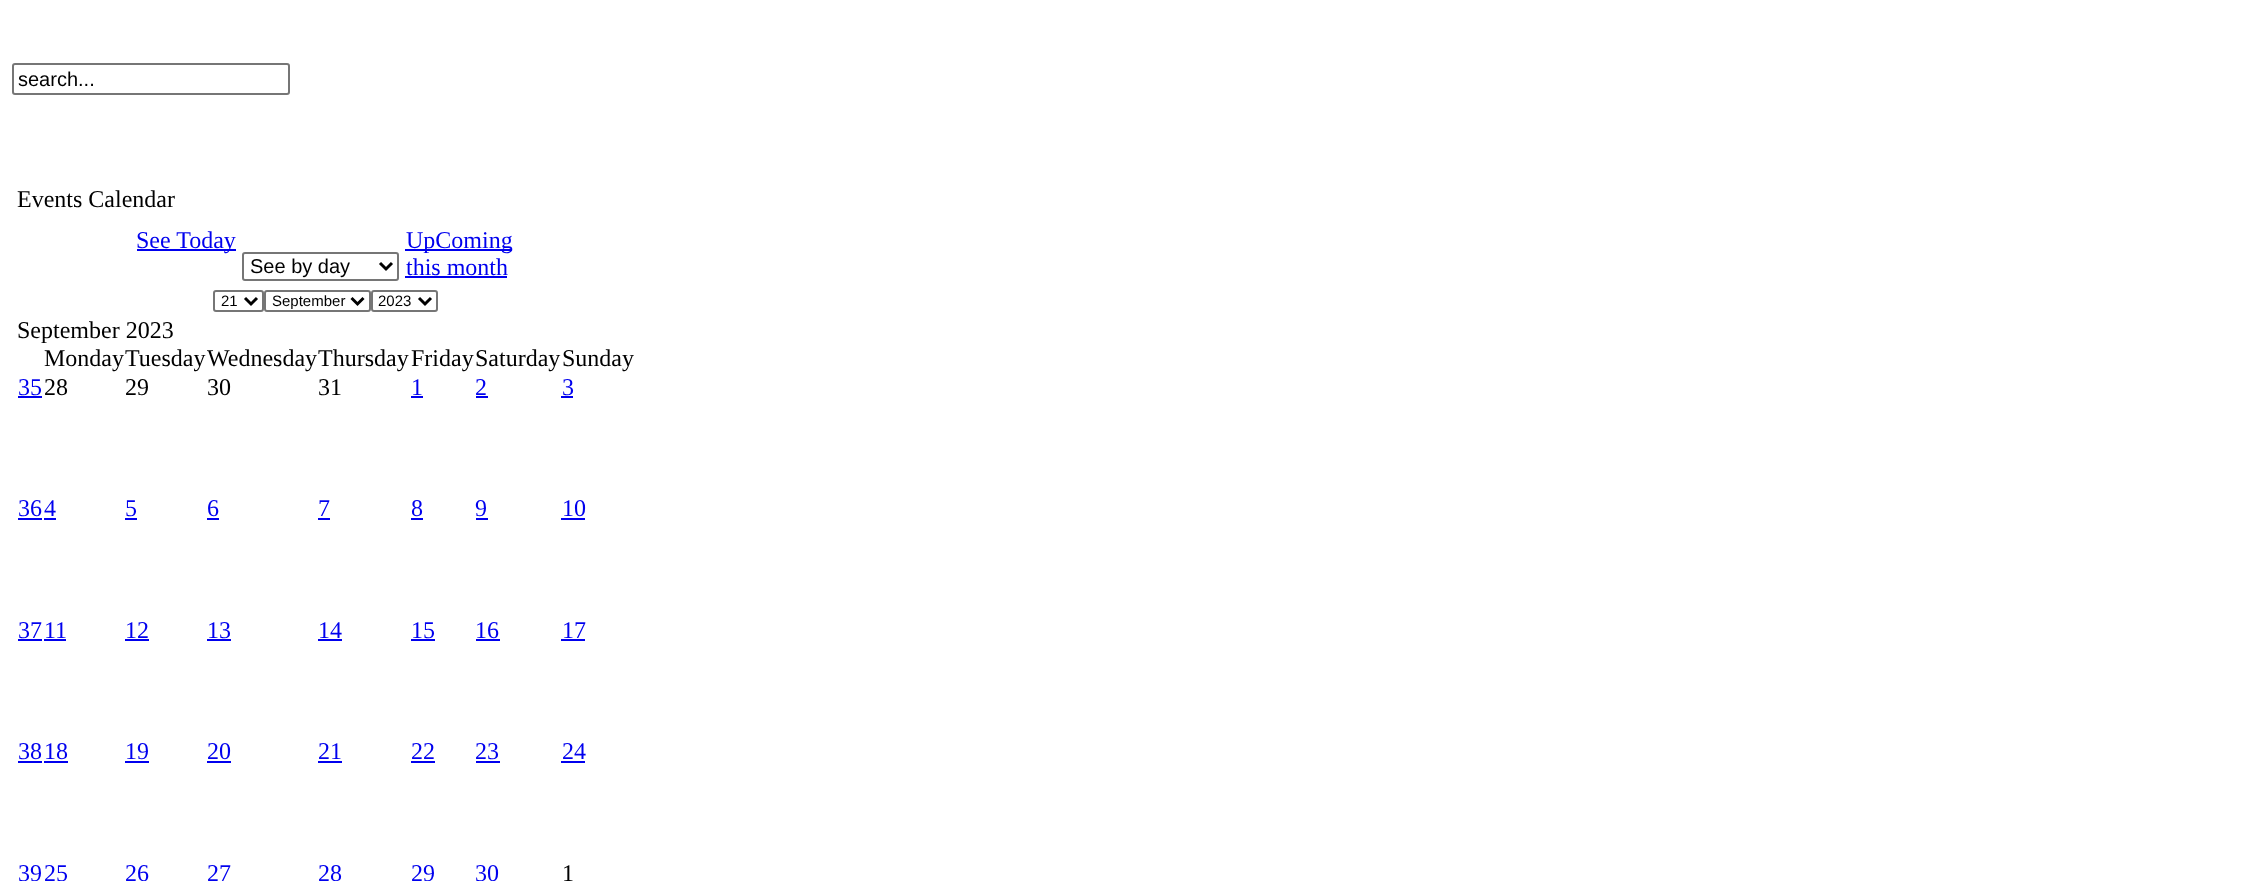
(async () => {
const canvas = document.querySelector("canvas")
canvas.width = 2242
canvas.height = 881
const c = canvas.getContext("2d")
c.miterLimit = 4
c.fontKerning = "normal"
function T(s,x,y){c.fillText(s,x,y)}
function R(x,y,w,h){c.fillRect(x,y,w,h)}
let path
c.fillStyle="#fff"
R(0,0,2242,881)
c.beginPath()
c.roundRect(13,64,276,30,2)
c.strokeStyle="#767676"
c.lineWidth=2
c.stroke()
c.font="20px Liberation Sans"
c.fillStyle="#000"
T("search...",18,86)
c.font="24px Liberation Serif"
T("Events Calendar",17,207)
c.fillStyle="#00e"
R(137,249,99,2)
T("See Today",136,248)
c.beginPath()
c.roundRect(243,253,155,27,2)
c.stroke()
path = new Path2D("M380 263l6 6l6-6")
c.strokeStyle="#000"
c.lineWidth=3
c.stroke(path)
c.font="20px Liberation Sans"
c.fillStyle="#000"
T("See by day",250,273)
c.fillStyle="#00e"
R(405,249,107,2)
c.font="24px Liberation Serif"
T("UpComing",406,248)
T("this month",406,275)
R(405,276,102,2)
c.beginPath()
c.roundRect(214,291,49,20,2)
c.strokeStyle="#767676"
c.lineWidth=2
c.stroke()
path = new Path2D("M245 298l6 6l6-6")
c.strokeStyle="#000"
c.lineWidth=3
c.stroke(path)
c.font="15px Liberation Sans"
c.fillStyle="#000"
T("21",221,306)
c.beginPath()
c.roundRect(265,291,105,20,2)
c.strokeStyle="#767676"
c.lineWidth=2
c.stroke()
path = new Path2D("M351.5 298l6 6l6-6")
c.strokeStyle="#000"
c.lineWidth=3
c.stroke(path)
T("September",272,306)
c.beginPath()
c.roundRect(372,291,65,20,2)
c.strokeStyle="#767676"
c.lineWidth=2
c.stroke()
path = new Path2D("M419 298l6 6l6-6")
c.strokeStyle="#000"
c.lineWidth=3
c.stroke(path)
T("2023",378,306)
c.font="24px Liberation Serif"
T("September 2023",17,338)
T("Monday",44,366)
T("Tuesday",125,366)
T("Wednesday",207,366)
T("Thursday",318,366)
T("Friday",411,366)
T("Saturday",475,366)
T("Sunday",562,366)
c.fillStyle="#00e"
T("35",18,395)
R(18,396,24,2)
c.fillStyle="#000"
T("28",44,395)
T("29",125,395)
T("30",207,395)
T("31",318,395)
c.fillStyle="#00e"
T("1",411,395)
R(411,396,12,2)
T("2",475,395)
R(476,396,12,2)
T("3",562,395)
R(561,396,12,2)
T("36",18,516)
R(18,518,24,2)
T("4",44,516)
R(44,518,12,2)
T("5",125,516)
R(125,518,12,2)
T("6",207,516)
R(207,518,12,2)
T("7",318,516)
R(318,518,12,2)
T("8",411,516)
R(411,518,12,2)
T("9",475,516)
R(476,518,12,2)
T("10",562,516)
R(561,518,24,2)
T("37",18,638)
R(18,639,24,2)
T("11",44,638)
R(44,639,22,2)
T("12",125,638)
R(125,639,24,2)
T("13",207,638)
R(207,639,24,2)
T("14",318,638)
R(318,639,24,2)
T("15",411,638)
R(411,639,24,2)
T("16",475,638)
R(476,639,24,2)
T("17",562,638)
R(561,639,24,2)
T("38",18,759)
R(18,761,24,2)
T("18",44,759)
R(44,761,24,2)
T("19",125,759)
R(125,761,24,2)
T("20",207,759)
R(207,761,24,2)
T("21",318,759)
R(318,761,24,2)
T("22",411,759)
R(411,761,24,2)
T("23",475,759)
R(476,761,24,2)
T("24",562,759)
R(561,761,24,2)
T("39",18,881)
T("25",44,881)
T("26",125,881)
T("27",207,881)
T("28",318,881)
T("29",411,881)
T("30",475,881)
c.fillStyle="#000"
T("1",562,881)
})()
